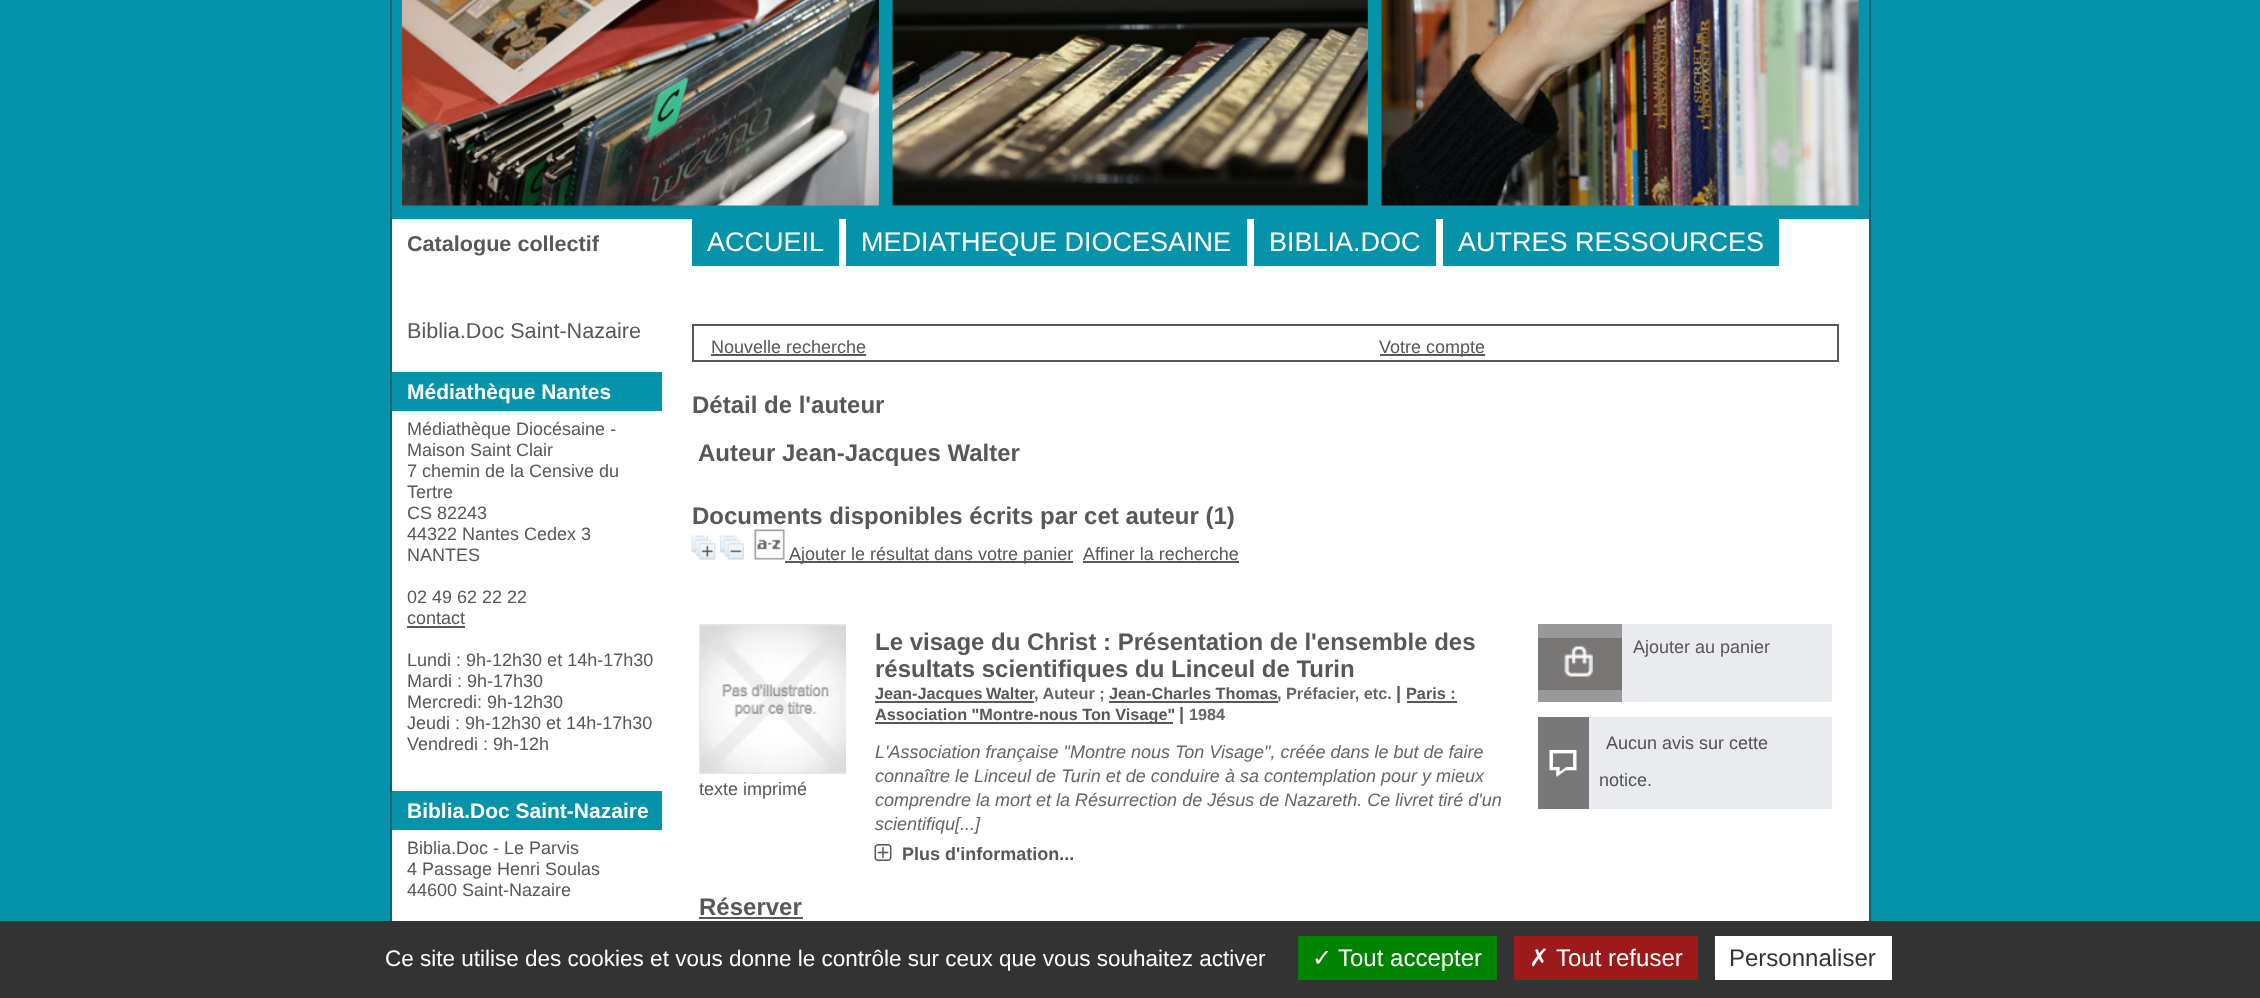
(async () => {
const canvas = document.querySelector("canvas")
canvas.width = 2260
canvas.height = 998
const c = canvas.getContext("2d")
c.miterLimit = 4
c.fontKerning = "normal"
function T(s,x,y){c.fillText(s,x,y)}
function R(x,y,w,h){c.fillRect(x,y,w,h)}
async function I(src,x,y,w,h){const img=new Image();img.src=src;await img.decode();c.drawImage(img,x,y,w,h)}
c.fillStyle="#0593a9"
R(0,0,2260,998)
c.strokeStyle="#036170"
c.lineWidth=2
c.strokeRect(391,-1,1479,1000)
c.fillStyle="#fff"
R(392,219,1477,702)
c.font="bold 21.6px Liberation Sans"
c.fillStyle="#58585c"
T("Catalogue collectif",407,251)
c.font="21.6px Liberation Sans"
T("Biblia.Doc Saint-Nazaire",407,338)
c.fillStyle="#0593a9"
R(392,372,270,39)
c.font="bold 21px Liberation Sans"
c.fillStyle="#fff"
T("Médiathèque Nantes",407,399)
c.font="18px Liberation Sans"
c.fillStyle="#58585c"
T("Médiathèque Diocésaine -",407,435)
T("Maison Saint Clair",407,456)
T("7 chemin de la Censive du",407,477)
T("Tertre",407,498)
T("CS 82243",407,519)
T("44322 Nantes Cedex 3",407,540)
T("NANTES",407,561)
T("02 49 62 22 22",407,603)
T("contact",407,624)
R(407,626,58,2)
T("Lundi : 9h-12h30 et 14h-17h30",407,666)
T("Mardi : 9h-17h30",407,687)
T("Mercredi: 9h-12h30",407,708)
T("Jeudi : 9h-12h30 et 14h-17h30",407,729)
T("Vendredi : 9h-12h",407,750)
c.fillStyle="#0593a9"
R(392,791,270,39)
c.font="bold 21px Liberation Sans"
c.fillStyle="#fff"
T("Biblia.Doc Saint-Nazaire",407,818)
c.font="18px Liberation Sans"
c.fillStyle="#58585c"
T("Biblia.Doc - Le Parvis",407,854)
T("4 Passage Henri Soulas",407,875)
T("44600 Saint-Nazaire",407,896)
await I("1.png",402,0,477,206)
await I("2.png",892,0,476,206)
await I("3.png",1381,0,478,206)
c.fillStyle="#0593a9"
R(692,219,147,47)
c.font="27px Liberation Sans"
c.fillStyle="#fff"
T("ACCUEIL",707,251)
c.fillStyle="#0593a9"
R(846,219,401,47)
c.fillStyle="#fff"
T("MEDIATHEQUE DIOCESAINE",861,251)
c.fillStyle="#0593a9"
R(1254,219,182,47)
c.fillStyle="#fff"
T("BIBLIA.DOC",1269,251)
c.fillStyle="#0593a9"
R(1443,219,336,47)
c.fillStyle="#fff"
T("AUTRES RESSOURCES",1458,251)
c.strokeStyle="#58585c"
c.strokeRect(693,325,1145,36)
c.font="18px Liberation Sans"
c.fillStyle="#58585c"
T("Nouvelle recherche",711,353)
R(711,354,155,2)
R(1380,354,105,2)
T("Votre compte",1379,353)
c.font="bold 24px Liberation Sans"
T("Détail de l'auteur",692,413)
T("Auteur Jean-Jacques Walter",698,461)
T("Documents disponibles écrits par cet auteur (1)",692,524)
await I("4.png",691,535,25,25)
await I("5.png",720,535,24,25)
await I("6.png",754,529,31,31)
R(785,561,288,2)
c.font="18px Liberation Sans"
T("Ajouter le résultat dans votre panier",789,560)
T("Affiner la recherche",1083,560)
R(1083,561,156,2)
c.font="bold 24px Liberation Sans"
T("Le visage du Christ : Présentation de l'ensemble des",875,650)
T("résultats scientifiques du Linceul de Turin",875,677)
R(875,701,159,2)
c.wordSpacing="-1px"
c.font="bold 16.25px Liberation Sans"
T("Jean-Jacques Walter",875,699)
c.wordSpacing="0px"
c.fillStyle="#666"
T(", Auteur ;",1034,699)
c.fillStyle="#58585c"
T("Jean-Charles Thomas",1109,699)
c.fillStyle="#666"
T(", Préfacier, etc.",1277,699)
c.fillStyle="#58585c"
R(1109,701,169,2)
c.font="bold 18px Liberation Sans"
T("|",1396,699)
c.font="bold 16.25px Liberation Sans"
T("Paris :",1406,699)
R(1407,701,50,2)
R(875,722,298,2)
T("Association \"Montre-nous Ton Visage\"",875,720)
c.font="bold 18px Liberation Sans"
T("|",1179,720)
c.font="bold 16.25px Liberation Sans"
c.fillStyle="#666"
T("1984",1189,720)
c.font="italic 18px Liberation Sans"
T("L'Association française \"Montre nous Ton Visage\", créée dans le but de faire",875,758)
T("connaître le Linceul de Turin et de conduire à sa contemplation pour y mieux",875,782)
T("comprendre la mort et la Résurrection de Jésus de Nazareth. Ce livret tiré d'un",875,806)
T("scientifiqu[...]",875,830)
await I("7.png",874,844,18,17)
c.font="bold 18px Liberation Sans"
c.fillStyle="#58585c"
T("Plus d'information...",902,860)
c.fillStyle="#999"
R(1538,624,84,78)
c.fillStyle="#797676"
R(1538,638,84,52)
await I("8.png",1564,646,29,31)
c.fillStyle="#e9ebee"
R(1622,624,210,78)
c.font="18px Liberation Sans"
c.fillStyle="#58585c"
T("Ajouter au panier",1633,653)
c.fillStyle="#787878"
R(1538,717,51,92)
await I("9.png",1549,750,28,27)
c.fillStyle="#e9ebee"
R(1589,717,243,92)
c.fillStyle="#555252"
T("Aucun avis sur cette",1606,749)
T("notice.",1599,786)
c.save()
c.beginPath()
c.rect(699,624,147,155)
c.clip()
c.strokeStyle="#e6e6e6"
c.strokeRect(700,625,148,148)
c.restore()
await I("10.png",700,625,146,148)
c.fillStyle="#58585c"
T("texte imprimé",699,795)
c.font="bold 24px Liberation Sans"
T("Réserver",699,915)
R(699,917,104,2)
c.fillStyle="#333"
R(0,921,2260,77)
c.font="22.5px Liberation Sans"
c.fillStyle="#fff"
T("Ce site utilise des cookies et vous donne le contrôle sur ceux que vous souhaitez activer",385,966)
c.fillStyle="#008300"
R(1298,936,199,44)
c.font="24px DejaVu Sans"
c.fillStyle="#fff"
T("✓",1312,966)
c.font="24px Liberation Sans"
T("Tout accepter",1338,966)
c.fillStyle="#9c1a1a"
R(1514,936,184,44)
c.font="24px DejaVu Sans"
c.fillStyle="#fff"
T("✗",1529,966)
c.font="24px Liberation Sans"
T("Tout refuser",1556,966)
R(1715,936,177,44)
c.fillStyle="#333"
T("Personnaliser",1729,966)
})()
